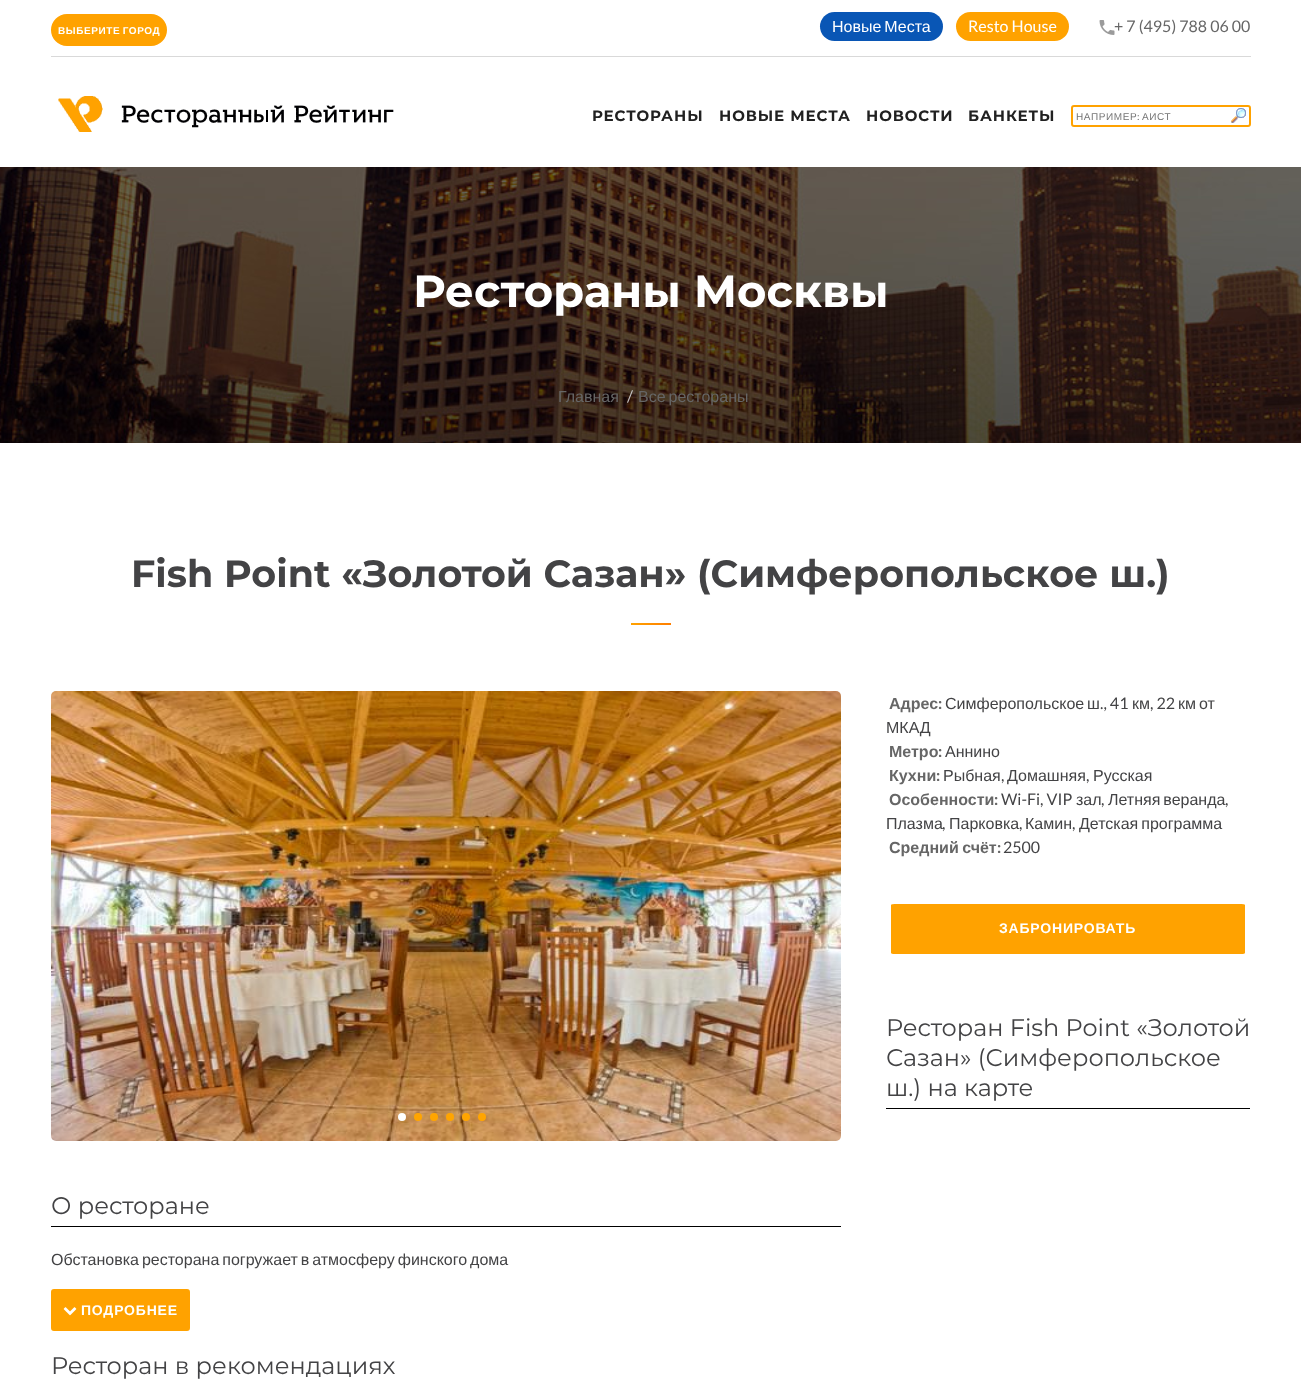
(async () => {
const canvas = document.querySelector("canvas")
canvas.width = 1301
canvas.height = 1385
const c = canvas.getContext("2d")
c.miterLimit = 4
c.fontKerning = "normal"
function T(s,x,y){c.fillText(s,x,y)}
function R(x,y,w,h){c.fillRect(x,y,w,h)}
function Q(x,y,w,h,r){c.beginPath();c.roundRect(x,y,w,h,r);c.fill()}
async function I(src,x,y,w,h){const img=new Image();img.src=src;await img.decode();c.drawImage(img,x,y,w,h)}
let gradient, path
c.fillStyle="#fff"
R(0,0,1301,1385)
c.fillStyle="#d9d9d9"
R(51,56,1200,1)
c.fillStyle="#ffa200"
c.beginPath()
c.roundRect(52,15,114,30,15)
c.fill()
c.strokeStyle="#ffa200"
c.lineWidth=2
c.stroke()
c.letterSpacing="0.6px"
c.wordSpacing="-1px"
c.font="bold 10px Liberation Sans"
c.fillStyle="#fff"
T("ВЫБЕРИТЕ ГОРОД",58,34)
c.fillStyle="#0956b5"
Q(820,12,123,29,14.5)
c.letterSpacing="0px"
c.wordSpacing="-1.5px"
c.font="16px Liberation Sans"
c.fillStyle="#fff"
T("Новые Места",832,32)
c.fillStyle="#ffa200"
Q(956,12,113,29,14.5)
c.wordSpacing="0px"
c.font="16px Lato"
c.fillStyle="#fff"
T("Resto House",968,32)
c.fillStyle="#666"
T("+ 7 (495) 788 06 00",1114,32)
await I("1.png",1099,20,16,15)
await I("2.png",58,96,336,36)
c.letterSpacing="0.9px"
c.font="bold 15px Montserrat"
c.fillStyle="#212121"
T("РЕСТОРАНЫ",592,121)
T("НОВЫЕ МЕСТА",719,121)
T("НОВОСТИ",866,121)
T("БАНКЕТЫ",968,121)
await I("3.png",1231,108,15,15)
c.beginPath()
c.roundRect(1072,106,178,20,2)
c.stroke()
c.letterSpacing="0.6px"
c.font="10px Liberation Sans"
c.fillStyle="#757575"
T("НАПРИМЕР",1076,120)
c.font="10px Lato"
T(":",1137,120)
c.font="10px Liberation Sans"
T("АИСТ",1142,120)
await I("4.png",0,167,1301,276)
c.letterSpacing="0px"
c.font="bold 45px Montserrat"
c.fillStyle="#fff"
T("Рестораны Москвы",413,307)
c.font="16px Liberation Sans"
c.fillStyle="#666"
T("Главная",558,402)
c.font="16px Lato"
c.fillStyle="#c4c4c4"
T("/",627,402)
c.wordSpacing="-1.5px"
c.font="16px Liberation Sans"
c.fillStyle="#666"
T("Все рестораны",638,402)
c.wordSpacing="0px"
c.font="bold 38px Montserrat"
c.fillStyle="#434345"
T("Fish Point «Золотой Сазан» (Симферопольское ш.)",131,587)
gradient = c.createLinearGradient(631,624,671,624)
gradient.addColorStop(0,"#ffa200")
gradient.addColorStop(1,"#ff7e00")
c.fillStyle = gradient
R(631,623,40,2)
c.font="bold 16px Liberation Sans"
c.fillStyle="#666"
T("Адрес",889,709)
c.font="bold 16px Lato"
T(":",938,709)
c.font="16px Liberation Sans"
c.fillStyle="#434345"
T("Симферопольское",945,709)
T("ш",1087,709)
c.font="16px Lato"
T("., 41",1100,709)
c.font="16px Liberation Sans"
T("км",1132,709)
c.font="16px Lato"
T(", 22",1150,709)
c.font="16px Liberation Sans"
T("км",1178,709)
T("от",1199,709)
T("МКАД",886,733)
c.font="bold 16px Liberation Sans"
c.fillStyle="#666"
T("Метро",889,757)
c.font="bold 16px Lato"
T(":",938,757)
c.font="16px Liberation Sans"
c.fillStyle="#434345"
T("Аннино",945,757)
c.font="bold 16px Liberation Sans"
c.fillStyle="#666"
T("Кухни",889,781)
c.font="bold 16px Lato"
T(":",936,781)
c.font="16px Liberation Sans"
c.fillStyle="#434345"
T("Рыбная",943,781)
c.font="16px Lato"
T(",",1001,781)
c.font="16px Liberation Sans"
T("Домашняя",1007,781)
c.font="16px Lato"
T(",",1086,781)
c.font="16px Liberation Sans"
T("Русская",1093,781)
c.font="bold 16px Liberation Sans"
c.fillStyle="#666"
T("Особенности",889,805)
c.font="bold 16px Lato"
T(":",994,805)
c.font="16px Lato"
c.fillStyle="#434345"
T("Wi-Fi, VIP",1001,805)
c.font="16px Liberation Sans"
T("зал",1076,805)
c.font="16px Lato"
T(",",1101,805)
c.wordSpacing="-1.5px"
c.font="16px Liberation Sans"
T("Летняя веранда",1108,805)
c.wordSpacing="0px"
c.font="16px Lato"
T(",",1225,805)
c.font="16px Liberation Sans"
T("Плазма",886,829)
c.font="16px Lato"
T(",",942,829)
c.font="16px Liberation Sans"
T("Парковка",949,829)
c.font="16px Lato"
T(",",1019,829)
c.font="16px Liberation Sans"
T("Камин",1025,829)
c.font="16px Lato"
T(",",1072,829)
c.wordSpacing="-1.5px"
c.font="16px Liberation Sans"
T("Детская программа",1079,829)
c.wordSpacing="-1px"
c.font="bold 16px Liberation Sans"
c.fillStyle="#666"
T("Средний счёт",889,853)
c.wordSpacing="0px"
c.font="bold 16px Lato"
T(":",997,853)
c.font="16px Lato"
c.fillStyle="#434345"
T("2500",1003,853)
c.fillStyle="#ffa200"
path = new Path2D("M898 904h340c4 0 7 0 7 1v48c0 1-3 1-7 1h-340c-4 0-7 0-7-1v-48c0-1 3-1 7-1z")
c.fill(path)
c.letterSpacing="0.8px"
c.font="bold 14px Liberation Sans"
c.fillStyle="#fff"
T("ЗАБРОНИРОВАТЬ",999,933)
c.fillStyle="#000"
R(886,1108,364,1)
c.letterSpacing="0px"
c.font="24px Montserrat"
c.fillStyle="#434345"
T("Ресторан Fish Point «Золотой",886,1036)
T("Сазан» (Симферопольское",886,1066)
T("ш.) на карте",886,1096)
await I("5.png",51,691,790,450)
c.save()
c.beginPath()
c.rect(51,691,790,450)
c.clip()
c.fillStyle="#fff"
path = new Path2D("M884 873v86l-44-43z")
c.fill(path)
c.restore()
c.fillStyle="#fff"
c.beginPath()
c.arc(402,1117,4,0,7)
c.fill()
c.fillStyle="#ffa500"
c.beginPath()
c.arc(418,1117,4,0,7)
c.fill()
c.beginPath()
c.arc(434,1117,4,0,7)
c.fill()
c.beginPath()
c.arc(450,1117,4,0,7)
c.fill()
c.beginPath()
c.arc(466,1117,4,0,7)
c.fill()
c.beginPath()
c.arc(482,1117,4,0,7)
c.fill()
c.fillStyle="#000"
R(51,1226,790,1)
c.fillStyle="#434345"
T("О ресторане",51,1214)
c.wordSpacing="-1.5px"
c.font="16px Liberation Sans"
T("Обстановка ресторана погружает в атмосферу финского дома",51,1265)
c.fillStyle="#ffa200"
c.beginPath()
c.roundRect(52,1290,137,40,2)
c.fill()
c.stroke()
await I("6.png",63,1307,14,9)
c.letterSpacing="0.8px"
c.wordSpacing="0px"
c.font="bold 14px Liberation Sans"
c.fillStyle="#fff"
T("ПОДРОБНЕЕ",81,1315)
c.letterSpacing="0px"
c.font="24px Montserrat"
c.fillStyle="#434345"
T("Ресторан в рекомендациях",51,1374)
})()
